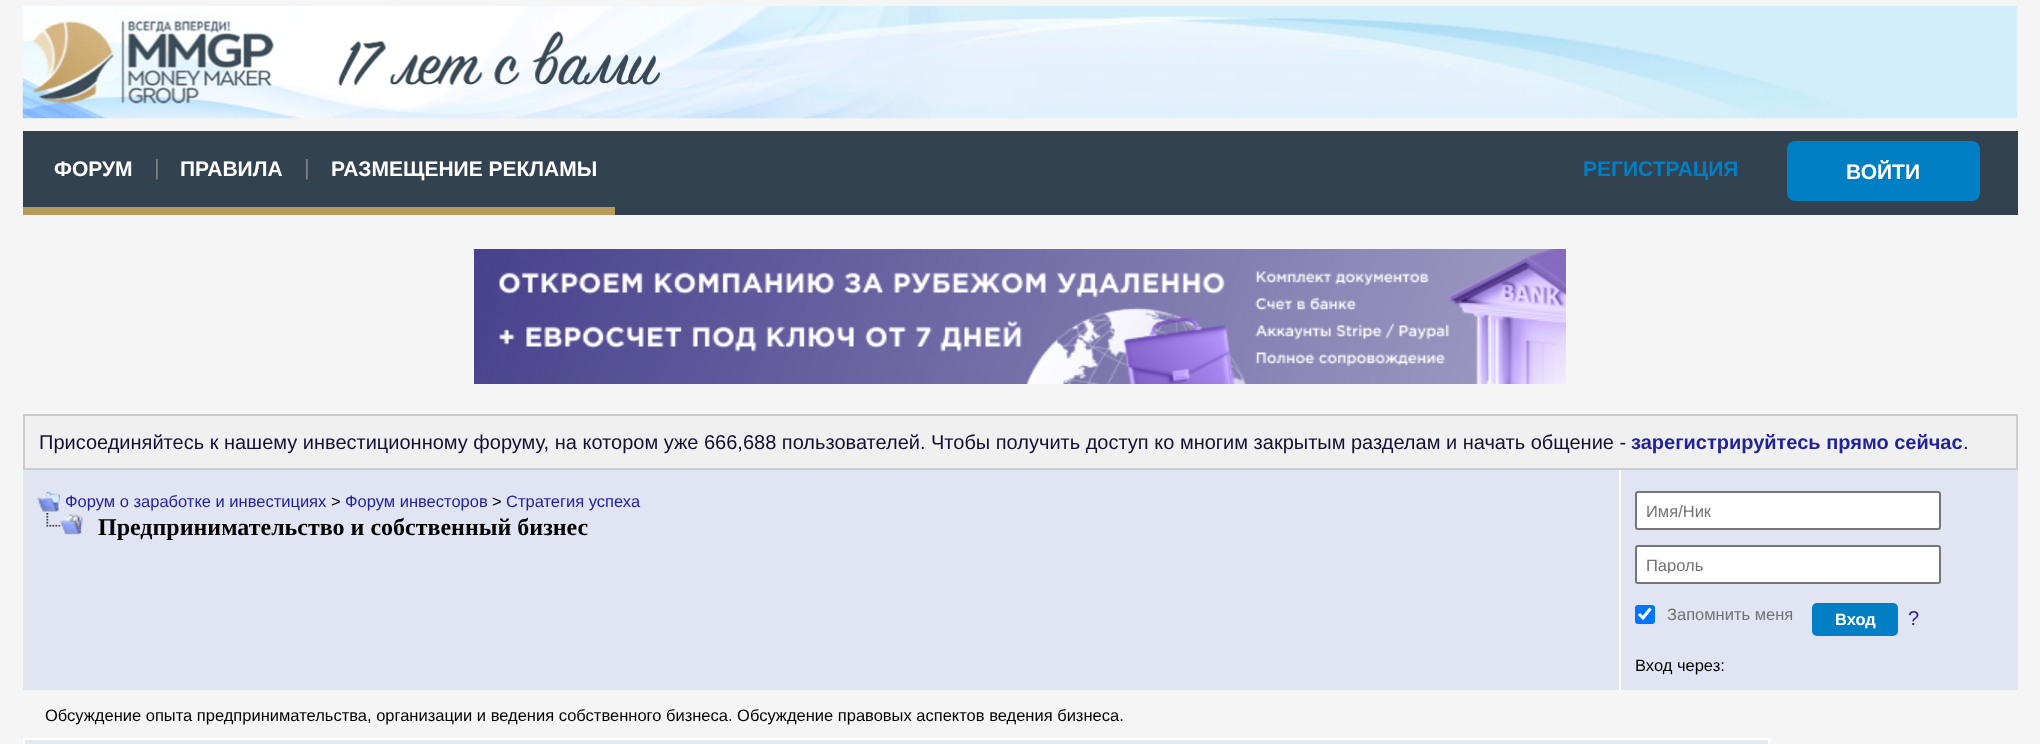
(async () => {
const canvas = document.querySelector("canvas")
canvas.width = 2040
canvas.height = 744
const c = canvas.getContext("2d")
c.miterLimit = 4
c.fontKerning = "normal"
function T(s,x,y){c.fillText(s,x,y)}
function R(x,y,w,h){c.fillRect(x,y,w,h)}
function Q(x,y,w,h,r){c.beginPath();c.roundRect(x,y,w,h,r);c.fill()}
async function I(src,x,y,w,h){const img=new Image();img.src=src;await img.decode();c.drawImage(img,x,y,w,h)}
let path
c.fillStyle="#f5f5f5"
R(0,0,2040,744)
await I("1.png",22,6,1996,113)
c.fillStyle="#324251"
R(23,131,1995,84)
c.fillStyle="#b69a5b"
R(23,207,592,8)
c.font="bold 21px Liberation Sans"
c.fillStyle="#fff"
T("ФОРУМ",54,176)
c.font="22px Liberation Sans"
c.fillStyle="#808080"
T("|",154,175)
c.font="bold 21px Liberation Sans"
c.fillStyle="#fff"
T("ПРАВИЛА",180,176)
c.font="22px Liberation Sans"
c.fillStyle="#808080"
T("|",304,175)
c.font="bold 21px Liberation Sans"
c.fillStyle="#fff"
T("РАЗМЕЩЕНИЕ РЕКЛАМЫ",331,176)
c.fillStyle="#007fc5"
T("РЕГИСТРАЦИЯ",1583,176)
Q(1787,141,193,60,8)
c.fillStyle="#fff"
T("ВОЙТИ",1846,179)
await I("2.png",474,249,1092,135)
c.fillStyle="#f0f0f0"
c.beginPath()
c.rect(24,415,1993,54)
c.fill()
c.strokeStyle="#ccc"
c.lineWidth=2
c.stroke()
c.font="20px Liberation Sans"
c.fillStyle="#130f30"
T("Присоединяйтесь к нашему инвестиционному форуму, на котором уже 666,688 пользователей.",39,449)
T("Чтобы получить доступ ко многим закрытым разделам и начать общение -",931,449)
c.font="bold 20px Liberation Sans"
c.fillStyle="#22229c"
T("зарегистрируйтесь прямо сейчас",1631,449)
c.font="20px Liberation Sans"
c.fillStyle="#130f30"
T(".",1963,449)
c.fillStyle="#e1e4f2"
R(23,470,1995,220)
await I("3.png",37,491,23,21)
c.font="16.5px Liberation Sans"
c.fillStyle="#22229c"
T("Форум о заработке и инвестициях",65,507)
c.fillStyle="#000"
T(">",331,507)
c.fillStyle="#22229c"
T("Форум инвесторов",345,507)
c.fillStyle="#000"
T(">",492,507)
c.fillStyle="#22229c"
T("Стратегия успеха",506,507)
await I("4.png",46,513,37,22)
c.font="bold 24px Liberation Serif"
c.fillStyle="#000"
T("Предпринимательство и собственный бизнес",98,535)
c.fillStyle="#fff"
R(1619,470,2,220)
c.beginPath()
c.roundRect(1636,492,304,37,2)
c.fill()
c.strokeStyle="#767676"
c.stroke()
c.font="16.5px Liberation Sans"
c.fillStyle="#727272"
T("Имя/Ник",1646,517)
c.fillStyle="#fff"
c.beginPath()
c.roundRect(1636,546,304,37,2)
c.fill()
c.stroke()
c.save()
c.beginPath()
c.rect(1646,555,285,18)
c.clip()
c.fillStyle="#727272"
T("Пароль",1646,571)
c.restore()
c.fillStyle="#0075ff"
Q(1635,605,20,19,3)
path = new Path2D("M1639 614l4 4l7.5-9.5")
c.strokeStyle="#fff"
c.lineWidth=3.1
c.stroke(path)
c.fillStyle="#727272"
T("Запомнить меня",1667,620)
c.fillStyle="#007fc5"
Q(1812,603,86,33,5)
c.font="bold 16.5px Liberation Sans"
c.fillStyle="#fff"
T("Вход",1835,625)
c.font="20px Liberation Sans"
c.fillStyle="#22229c"
T("?",1908,625)
c.font="16.5px Liberation Sans"
c.fillStyle="#000"
T("Вход через:",1635,671)
T("Обсуждение опыта предпринимательства, организации и ведения собственного бизнеса. Обсуждение правовых аспектов ведения бизнеса.",45,721)
c.fillStyle="#e4eaf2"
c.beginPath()
c.rect(24,739,1745,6)
c.fill()
c.lineWidth=2
c.stroke()
})()
